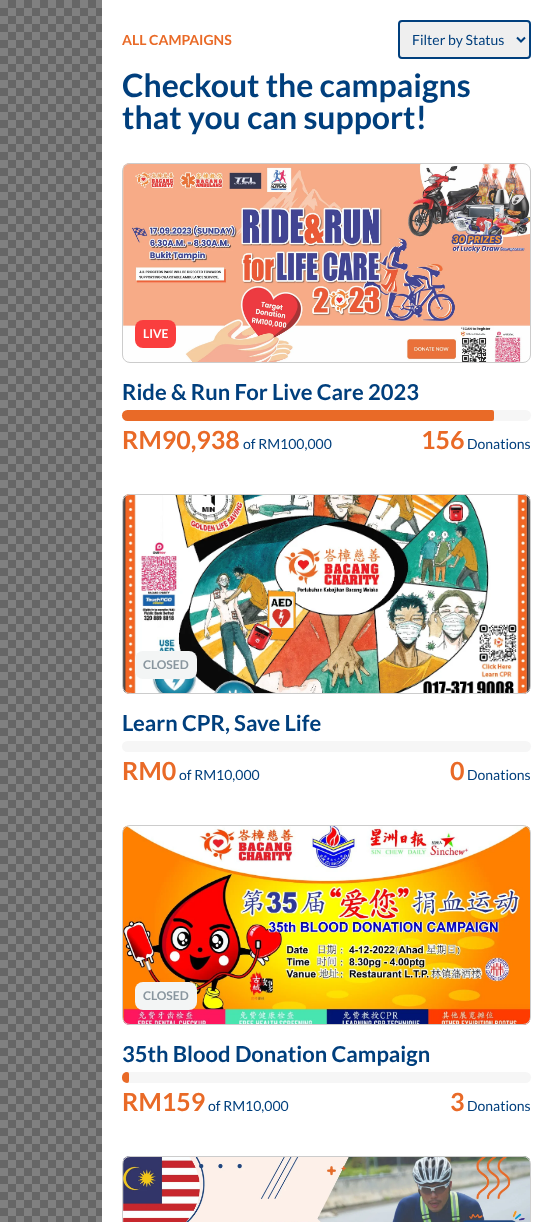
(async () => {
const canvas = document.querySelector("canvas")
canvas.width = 551
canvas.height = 1222
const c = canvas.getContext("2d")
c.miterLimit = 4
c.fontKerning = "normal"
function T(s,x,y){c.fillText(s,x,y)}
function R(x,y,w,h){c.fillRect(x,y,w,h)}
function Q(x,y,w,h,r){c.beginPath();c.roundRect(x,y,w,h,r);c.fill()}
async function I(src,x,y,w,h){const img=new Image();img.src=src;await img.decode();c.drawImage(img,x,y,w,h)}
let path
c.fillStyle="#fff"
R(0,0,551,1222)
await I("1.png",0,0,102,1222)
c.font="bold 14px Lato"
c.fillStyle="#e96a27"
T("ALL CAMPAIGNS",122,45)
c.fillStyle="#efefef"
c.beginPath()
c.roundRect(399,21,131,37,3)
c.fill()
c.strokeStyle="#003f7d"
c.lineWidth=2
c.stroke()
path = new Path2D("M517 37.5l4 4l4-4")
c.stroke(path)
c.font="14px Lato"
c.fillStyle="#003f7d"
T("Filter by Status",412,45)
c.font="bold 32px Lato"
T("Checkout the campaigns",122,97)
T("that you can support!",122,129)
await I("2.png",123,163,407,200)
c.beginPath()
c.roundRect(122.5,163.5,408,199,7.5)
c.strokeStyle="#ccc"
c.lineWidth=1
c.stroke()
c.fillStyle="#fa3e3e"
Q(135,320,41,28,8)
c.font="bold 12px Lato"
c.fillStyle="#fff"
T("LIVE",143,338)
c.font="bold 22px Lato"
c.fillStyle="#003f7d"
T("Ride & Run For Live Care 2023",122,400)
c.fillStyle="#f6f6f6"
Q(122,410,409,11,5.5)
c.fillStyle="#e96a27"
c.beginPath()
c.roundRect(122,410,372,11,[5.5,2,2,5.5])
c.fill()
c.font="bold 25px Lato"
T("RM90,938",122,449)
c.font="14px Lato"
c.fillStyle="#003f7d"
T("of RM100,000",243,449)
c.font="bold 25px Lato"
c.fillStyle="#e96a27"
T("156",421,449)
c.font="14px Lato"
c.fillStyle="#003f7d"
T("Donations",467,449)
await I("3.png",123,494,407,200)
c.beginPath()
c.roundRect(122.5,494.5,408,199,7.5)
c.stroke()
c.fillStyle="#f3f5f5"
Q(135,651,62,28,8)
c.font="bold 12px Lato"
c.fillStyle="#89969f"
T("CLOSED",143,669)
c.font="bold 22px Lato"
c.fillStyle="#003f7d"
T("Learn CPR, Save Life",122,731)
c.fillStyle="#f6f6f6"
Q(122,741,409,11,5.5)
c.font="bold 25px Lato"
c.fillStyle="#e96a27"
T("RM0",122,780)
c.font="14px Lato"
c.fillStyle="#003f7d"
T("of RM10,000",179,780)
c.font="bold 25px Lato"
c.fillStyle="#e96a27"
T("0",450,780)
c.font="14px Lato"
c.fillStyle="#003f7d"
T("Donations",467,780)
await I("4.png",123,825,407,200)
c.beginPath()
c.roundRect(122.5,825.5,408,199,7.5)
c.stroke()
c.fillStyle="#f3f5f5"
Q(135,982,62,28,8)
c.font="bold 12px Lato"
c.fillStyle="#89969f"
T("CLOSED",143,1000)
c.font="bold 22px Lato"
c.fillStyle="#003f7d"
T("35th Blood Donation Campaign",122,1062)
c.fillStyle="#f6f6f6"
Q(122,1072,409,11,5.5)
c.fillStyle="#e96a27"
c.beginPath()
c.roundRect(122,1072,7,11,[5,2,2,5])
c.fill()
c.font="bold 25px Lato"
T("RM159",122,1111)
c.font="14px Lato"
c.fillStyle="#003f7d"
T("of RM10,000",208,1111)
c.font="bold 25px Lato"
c.fillStyle="#e96a27"
T("3",450,1111)
c.font="14px Lato"
c.fillStyle="#003f7d"
T("Donations",467,1111)
await I("5.png",123,1156,407,66)
c.beginPath()
c.roundRect(122.5,1156.5,408,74,7.5)
c.stroke()
})()
